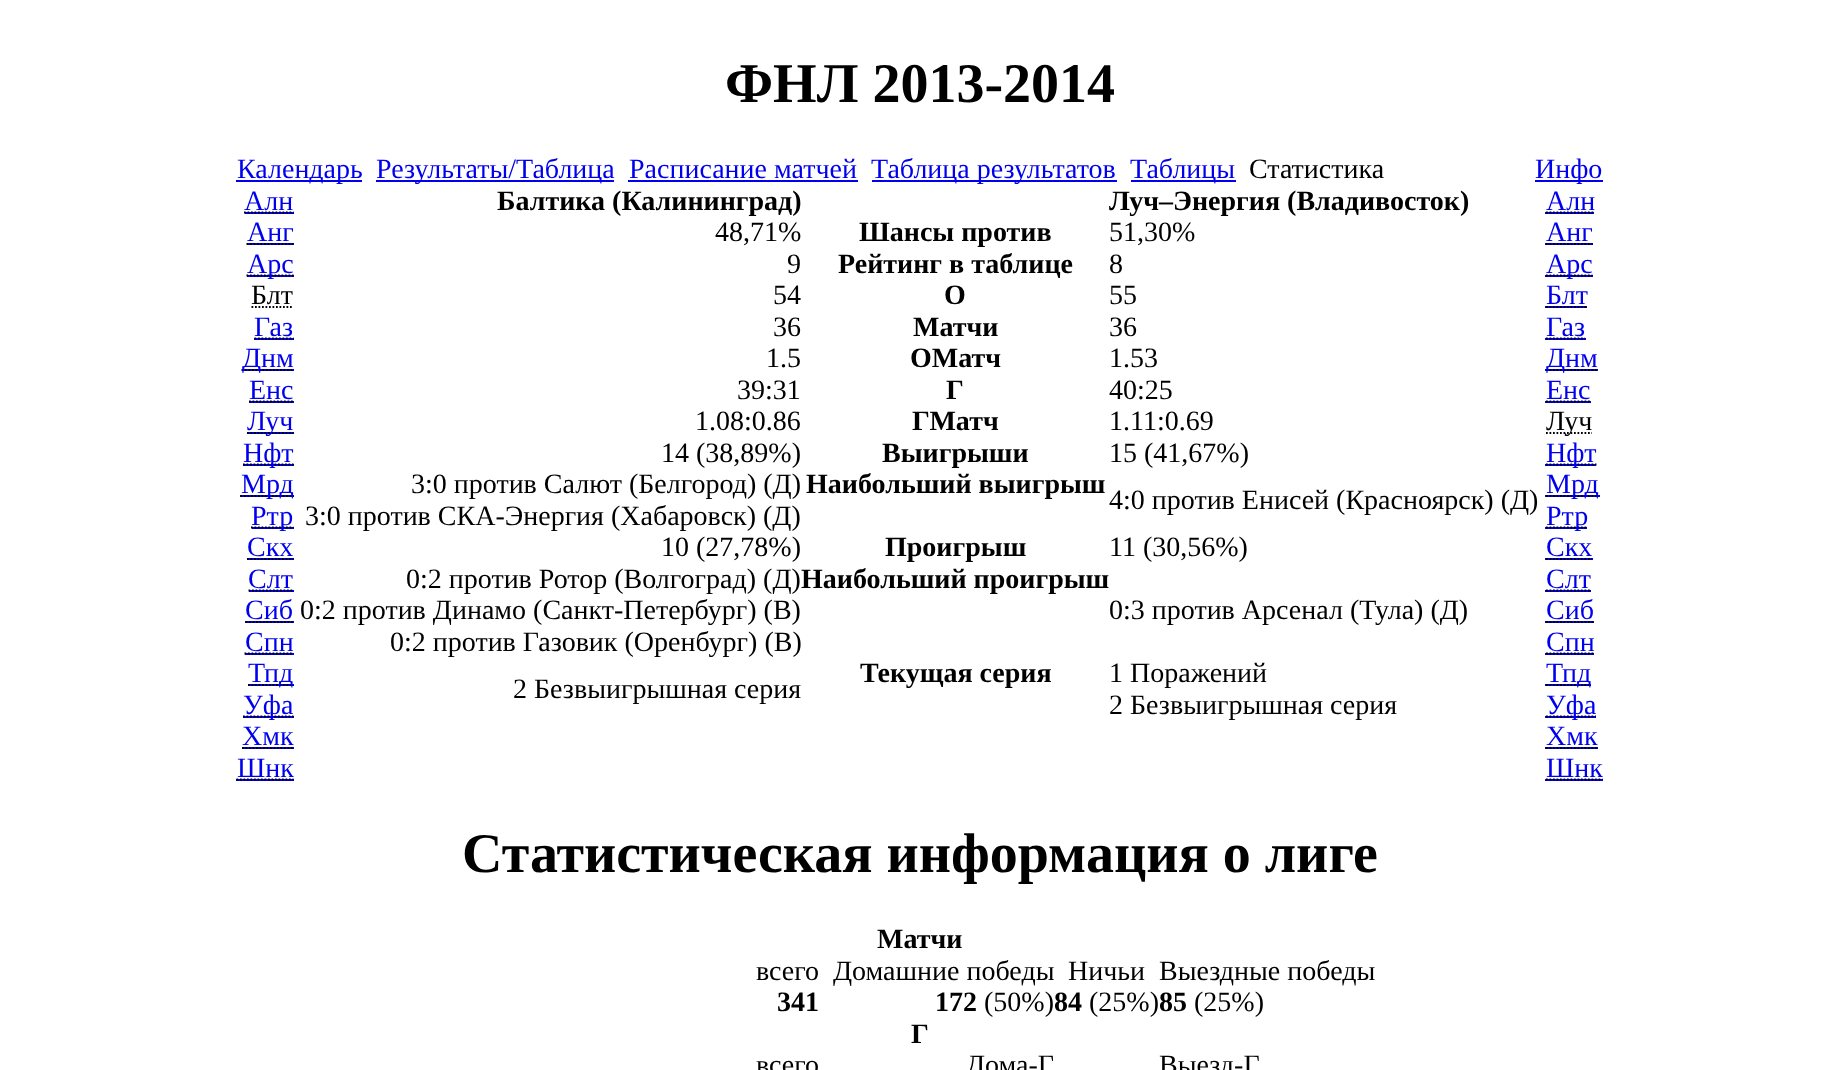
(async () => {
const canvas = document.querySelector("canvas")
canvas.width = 1839
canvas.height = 1070
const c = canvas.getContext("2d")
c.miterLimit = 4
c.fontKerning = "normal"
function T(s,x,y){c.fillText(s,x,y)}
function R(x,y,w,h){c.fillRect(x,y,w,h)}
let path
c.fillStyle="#fff"
R(0,0,1839,1070)
c.font="bold 56px Liberation Serif"
c.fillStyle="#000"
T("ФНЛ 2013-2014",725,102)
c.fillStyle="#00e"
R(236,180,126,2)
c.font="28px Liberation Serif"
T("Календарь",237,178)
R(376,180,238,2)
T("Результаты/Таблица",376,178)
T("Расписание матчей",629,178)
R(628,180,230,2)
R(872,180,245,2)
T("Таблица результатов",871,178)
R(1131,180,105,2)
T("Таблицы",1130,178)
c.fillStyle="#000"
T("Статистика",1249,178)
c.fillStyle="#00e"
R(1535,180,68,2)
T("Инфо",1535,178)
T("Алн",244,210)
R(245,212,49,2)
path = new Path2D("M244 212.5h49.5")
c.strokeStyle="#000"
c.lineWidth=1.8
c.setLineDash([1.75,1.75])
c.stroke(path)
T("Анг",247,241)
R(247,243,47,2)
path = new Path2D("M246.5 244h47")
c.stroke(path)
R(247,275,47,2)
path = new Path2D("M246.5 275.5h47")
c.stroke(path)
T("Арс",247,273)
c.fillStyle="#000"
T("Блт",251,304)
path = new Path2D("M251.5 307h42")
c.stroke(path)
c.fillStyle="#00e"
T("Газ",254,336)
R(254,338,40,2)
path = new Path2D("M254.5 338.5h39")
c.stroke(path)
R(242,369,52,2)
path = new Path2D("M241.5 370h52")
c.stroke(path)
T("Днм",242,367)
T("Енс",249,399)
R(249,401,45,2)
path = new Path2D("M249 401.5h44.5")
c.stroke(path)
R(247,432,47,2)
path = new Path2D("M247 433h46.5")
c.stroke(path)
T("Луч",247,430)
R(243,464,51,2)
path = new Path2D("M243 464.5h50.5")
c.stroke(path)
T("Нфт",243,462)
R(240,495,54,2)
path = new Path2D("M240.5 496h53")
c.stroke(path)
T("Мрд",241,493)
R(252,527,42,2)
path = new Path2D("M251 527.5h42.5")
c.stroke(path)
T("Ртр",251,525)
T("Скх",247,556)
R(247,558,47,2)
path = new Path2D("M247 559h46.5")
c.stroke(path)
T("Слт",248,588)
R(249,590,45,2)
path = new Path2D("M248.5 590.5h45")
c.stroke(path)
T("Сиб",245,619)
R(245,621,49,2)
path = new Path2D("M245.5 622h48")
c.stroke(path)
T("Спн",245,651)
R(245,653,49,2)
path = new Path2D("M244.5 653.5h49")
c.stroke(path)
R(249,684,45,2)
path = new Path2D("M248 685h45.5")
c.stroke(path)
T("Тпд",248,682)
R(243,716,51,2)
path = new Path2D("M243 716.5h50.5")
c.stroke(path)
T("Уфа",243,714)
T("Хмк",242,745)
R(242,747,52,2)
path = new Path2D("M242 748h51.5")
c.stroke(path)
T("Шнк",237,777)
R(236,779,58,2)
path = new Path2D("M236.5 779.5h57")
c.stroke(path)
c.font="bold 28px Liberation Serif"
c.fillStyle="#000"
T("Балтика (Калининград)",497,210)
T("Луч–Энергия (Владивосток)",1109,210)
c.font="28px Liberation Serif"
T("48,71%",715,241)
c.font="bold 28px Liberation Serif"
T("Шансы против",859,241)
c.font="28px Liberation Serif"
T("51,30%",1109,241)
T("9",787,273)
c.font="bold 28px Liberation Serif"
T("Рейтинг в таблице",838,273)
c.font="28px Liberation Serif"
T("8",1109,273)
T("54",773,304)
c.font="bold 28px Liberation Serif"
T("О",944,304)
c.font="28px Liberation Serif"
T("55",1109,304)
T("36",773,336)
c.font="bold 28px Liberation Serif"
T("Матчи",913,336)
c.font="28px Liberation Serif"
T("36",1109,336)
T("1.5",766,367)
c.font="bold 28px Liberation Serif"
T("ОМатч",910,367)
c.font="28px Liberation Serif"
T("1.53",1109,367)
T("39:31",737,399)
c.font="bold 28px Liberation Serif"
T("Г",946,399)
c.font="28px Liberation Serif"
T("40:25",1109,399)
T("1.08:0.86",695,430)
c.font="bold 28px Liberation Serif"
T("ГМатч",912,430)
c.font="28px Liberation Serif"
T("1.11:0.69",1109,430)
T("14 (38,89%)",661,462)
c.font="bold 28px Liberation Serif"
T("Выигрыши",882,462)
c.font="28px Liberation Serif"
T("15 (41,67%)",1109,462)
T("3:0 против Салют (Белгород) (Д)",411,493)
T("3:0 против СКА-Энергия (Хабаровск) (Д)",305,525)
c.font="bold 28px Liberation Serif"
T("Наибольший выигрыш",806,493)
c.font="28px Liberation Serif"
T("4:0 против Енисей (Красноярск) (Д)",1109,509)
T("10 (27,78%)",661,556)
c.font="bold 28px Liberation Serif"
T("Проигрыш",885,556)
c.font="28px Liberation Serif"
T("11 (30,56%)",1109,556)
T("0:2 против Ротор (Волгоград) (Д)",406,588)
T("0:2 против Динамо (Санкт-Петербург) (В)",300,619)
T("0:2 против Газовик (Оренбург) (В)",390,651)
c.font="bold 28px Liberation Serif"
T("Наибольший проигрыш",801,588)
c.font="28px Liberation Serif"
T("0:3 против Арсенал (Тула) (Д)",1109,619)
c.font="bold 28px Liberation Serif"
T("Текущая серия",860,682)
c.font="28px Liberation Serif"
T("1 Поражений",1109,682)
T("2 Безвыигрышная серия",1109,714)
T("2 Безвыигрышная серия",513,698)
c.fillStyle="#00e"
T("Алн",1546,210)
R(1545,212,49,2)
path = new Path2D("M1546 212.5h49")
c.stroke(path)
T("Анг",1546,241)
R(1545,243,48,2)
path = new Path2D("M1546 244h46.5")
c.stroke(path)
R(1545,275,48,2)
path = new Path2D("M1546 275.5h46.5")
c.stroke(path)
T("Арс",1546,273)
T("Блт",1546,304)
R(1545,306,42,2)
path = new Path2D("M1546 307h42")
c.stroke(path)
T("Газ",1546,336)
R(1545,338,41,2)
path = new Path2D("M1546 338.5h39")
c.stroke(path)
R(1545,369,53,2)
path = new Path2D("M1546 370h51.5")
c.stroke(path)
T("Днм",1546,367)
T("Енс",1546,399)
R(1545,401,46,2)
path = new Path2D("M1546 401.5h44.5")
c.stroke(path)
path = new Path2D("M1546 433h46")
c.stroke(path)
c.fillStyle="#000"
T("Луч",1546,430)
c.fillStyle="#00e"
R(1545,464,51,2)
path = new Path2D("M1546 464.5h50.5")
c.stroke(path)
T("Нфт",1546,462)
R(1545,495,55,2)
path = new Path2D("M1546 496h52.5")
c.stroke(path)
T("Мрд",1546,493)
R(1545,527,42,2)
path = new Path2D("M1546 527.5h42")
c.stroke(path)
T("Ртр",1546,525)
T("Скх",1546,556)
R(1545,558,48,2)
path = new Path2D("M1546 559h46")
c.stroke(path)
T("Слт",1546,588)
R(1545,590,46,2)
path = new Path2D("M1546 590.5h45")
c.stroke(path)
T("Сиб",1546,619)
R(1545,621,49,2)
path = new Path2D("M1546 622h48")
c.stroke(path)
T("Спн",1546,651)
R(1545,653,49,2)
path = new Path2D("M1546 653.5h48.5")
c.stroke(path)
R(1545,684,46,2)
path = new Path2D("M1546 685h45")
c.stroke(path)
T("Тпд",1546,682)
R(1545,716,51,2)
path = new Path2D("M1546 716.5h50")
c.stroke(path)
T("Уфа",1546,714)
T("Хмк",1546,745)
R(1545,747,53,2)
path = new Path2D("M1546 748h51.5")
c.stroke(path)
T("Шнк",1546,777)
R(1545,779,58,2)
path = new Path2D("M1546 779.5h56.5")
c.stroke(path)
c.font="bold 56px Liberation Serif"
c.fillStyle="#000"
T("Статистическая информация о лиге",462,872)
c.font="bold 28px Liberation Serif"
T("Матчи",877,948)
c.font="28px Liberation Serif"
T("всего",756,980)
T("Домашние победы",833,980)
T("Ничьи",1068,980)
T("Выездные победы",1159,980)
c.font="bold 28px Liberation Serif"
T("341",777,1011)
T("172",935,1011)
c.font="28px Liberation Serif"
T("(50%)",984,1011)
c.font="bold 28px Liberation Serif"
T("84",1054,1011)
c.font="28px Liberation Serif"
T("(25%)",1089,1011)
c.font="bold 28px Liberation Serif"
T("85",1159,1011)
c.font="28px Liberation Serif"
T("(25%)",1194,1011)
c.font="bold 28px Liberation Serif"
T("Г",911,1043)
c.font="28px Liberation Serif"
T("всего",756,1074)
T("Дома-Г",966,1074)
T("Выезд-Г",1159,1074)
})()
